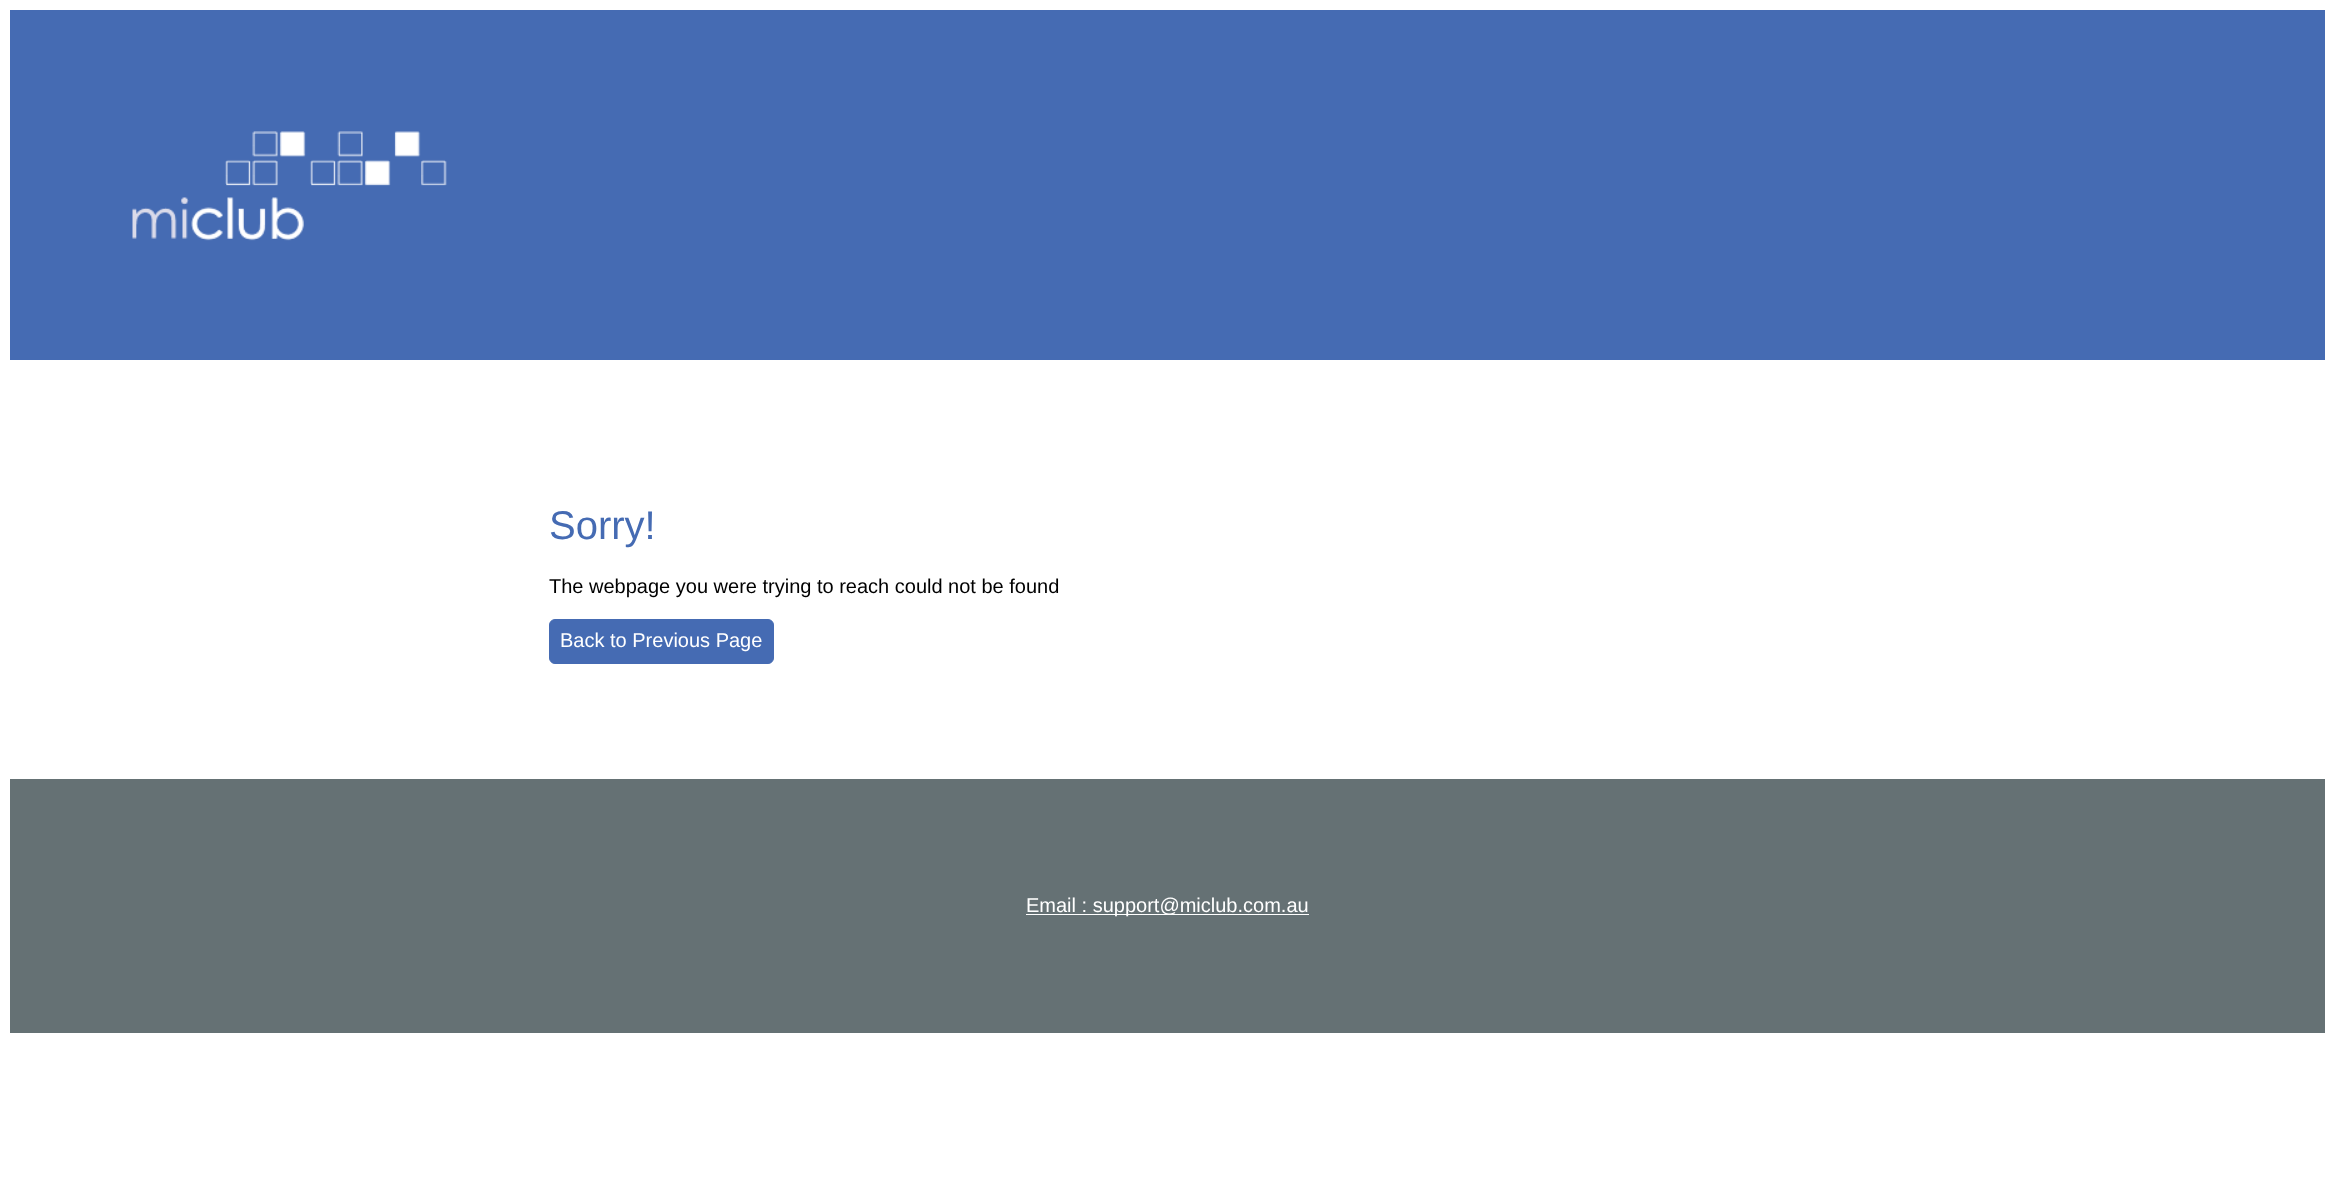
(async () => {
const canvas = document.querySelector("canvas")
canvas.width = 2335
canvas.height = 1190
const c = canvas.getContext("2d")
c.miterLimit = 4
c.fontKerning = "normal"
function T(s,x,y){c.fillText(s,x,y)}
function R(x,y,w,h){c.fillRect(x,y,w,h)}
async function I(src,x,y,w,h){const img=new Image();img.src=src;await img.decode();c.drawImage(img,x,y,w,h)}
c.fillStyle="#fff"
R(0,0,2335,1190)
c.fillStyle="#456bb3"
R(10,10,2315,350)
await I("1.png",132,131,315,110)
c.font="40px Liberation Sans"
T("Sorry!",549,539)
c.font="20px Liberation Sans"
c.fillStyle="#000"
T("The webpage you were trying to reach could not be found",549,593)
c.fillStyle="#456bb3"
c.beginPath()
c.roundRect(549.5,619.5,224,44,5.5)
c.fill()
c.strokeStyle="#456bb3"
c.stroke()
c.fillStyle="#fff"
T("Back to Previous Page",560,647)
c.fillStyle="#657174"
R(10,779,2315,254)
c.fillStyle="#fff"
R(1026,914,283,1)
T("Email : support@miclub.com.au",1026,912)
})()
